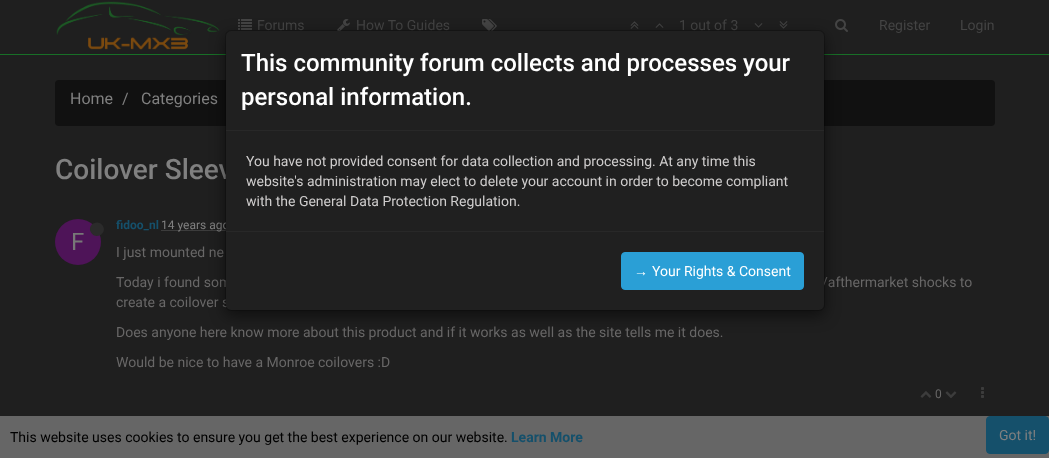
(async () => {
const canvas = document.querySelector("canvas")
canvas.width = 1049
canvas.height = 458
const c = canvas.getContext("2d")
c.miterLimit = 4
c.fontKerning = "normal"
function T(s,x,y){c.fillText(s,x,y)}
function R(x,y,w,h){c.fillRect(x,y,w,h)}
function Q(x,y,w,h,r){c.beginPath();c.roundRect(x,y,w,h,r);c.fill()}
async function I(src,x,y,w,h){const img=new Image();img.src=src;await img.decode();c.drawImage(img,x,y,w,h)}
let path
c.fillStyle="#1f1f1f"
R(0,0,1049,458)
c.fillStyle="#666"
R(0,416,1049,42)
c.fillStyle="#186f27"
R(0,54,1049,1)
await I("1.png",56,1,164,49)
await I("2.png",238,19,14,11)
c.font="14px Roboto"
c.fillStyle="#444"
T("Forums",257,30)
await I("3.png",337,19,13,12)
T("How To Guides",356,30)
await I("4.png",482,19,15,12)
await I("5.png",630,21,9,8)
await I("6.png",655,23,9,5)
T("1 out of 3",679,30)
await I("7.png",754,23,9,5)
await I("8.png",779,21,9,8)
await I("9.png",835,19,13,13)
T("Register",879,30)
T("Login",960,30)
c.fillStyle="#111"
Q(55,80,940,46,4)
c.font="16px Roboto"
c.fillStyle="#808080"
T("Home",70,104)
T("/",122,104)
T("Categories",141,104)
c.font="500 28px Roboto"
T("Coilover Sleev",55,179)
c.font="bold 12px Roboto"
c.fillStyle="#15506b"
T("fidoo_nl",116,229)
c.fillStyle="#3c3c3c"
R(161,230,68,1)
c.font="12px Roboto"
c.fillStyle="#808080"
T("14 years ago",161,229)
c.fillStyle="#4e1458"
c.beginPath()
c.arc(78,242,23,0,7)
c.fill()
c.fillStyle="#2b2b2b"
path = new Path2D("M103 226c4.5 7.5-7.5 14.5-12 6.5c-4.5-7.5 7-14.5 12-6.5z")
c.fill(path)
c.font="24px Roboto"
c.fillStyle="#777"
T("F",71,250)
c.font="14px Roboto"
c.fillStyle="#686767"
T("I just mounted ne",116,257)
T("Today i found som",116,287)
T("/afthermarket shocks to",822,287)
T("create a coilover s",116,307)
T("Does anyone here know more about this product and if it works as well as the site tells me it does.",116,337)
T("Would be nice to have a Monroe coilovers :D",116,367)
await I("10.png",920,391,12,7)
c.font="12px Roboto"
T("0",935,398)
await I("11.png",945,391,12,7)
await I("12.png",981,387,3,11)
c.fillStyle="#00000080"
c.filter="blur(7.5px)"
c.beginPath()
c.roundRect(225,35,600,281,6)
c.fill()
c.filter="none"
c.fillStyle="#202020"
Q(226,31,598,279,5)
c.beginPath()
c.roundRect(225.5,30.5,599,280,5.5)
c.strokeStyle="#00000033"
c.stroke()
c.fillStyle="#282828"
R(226,130,598,1)
c.font="500 24px Roboto"
c.fillStyle="#fff"
T("This community forum collects and processes your",241,71)
T("personal information.",241,105)
c.font="14px Roboto"
c.fillStyle="#cfcdcd"
T("You have not provided consent for data collection and processing. At any time this",246,166)
T("website's administration may elect to delete your account in order to become compliant",246,186)
T("with the General Data Protection Regulation.",246,206)
c.fillStyle="#282828"
R(226,231,598,1)
c.fillStyle="#2a9fd6"
c.beginPath()
c.roundRect(621.5,252.5,182,37,3.5)
c.fill()
c.strokeStyle="#2a9fd6"
c.stroke()
c.font="14px Liberation Sans"
c.fillStyle="#fff"
T("→",634,276)
c.font="14px Roboto"
T("Your Rights & Consent",652,276)
c.fillStyle="#000"
T("This website uses cookies to ensure you get the best experience on our website.",10,442)
c.font="bold 14px Roboto"
c.fillStyle="#15506b"
T("Learn More",511,442)
c.beginPath()
c.roundRect(986.5,416.5,62,37,3.5)
c.fill()
c.strokeStyle="#15506b"
c.stroke()
c.font="14px Roboto"
c.fillStyle="#808080"
T("Got it!",999,440)
})()
